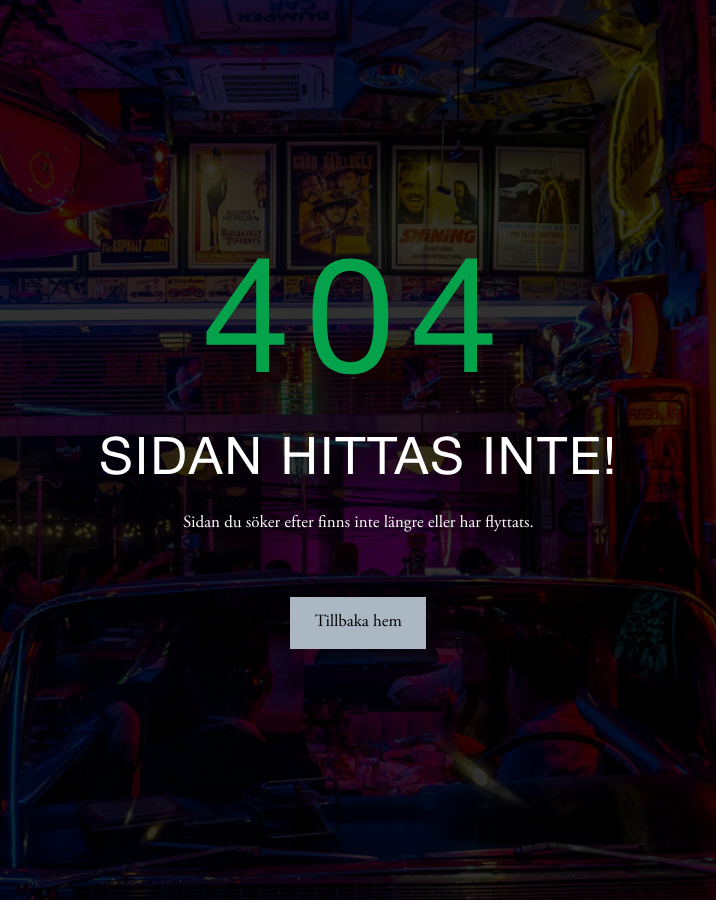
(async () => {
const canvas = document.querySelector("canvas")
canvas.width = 716
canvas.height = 900
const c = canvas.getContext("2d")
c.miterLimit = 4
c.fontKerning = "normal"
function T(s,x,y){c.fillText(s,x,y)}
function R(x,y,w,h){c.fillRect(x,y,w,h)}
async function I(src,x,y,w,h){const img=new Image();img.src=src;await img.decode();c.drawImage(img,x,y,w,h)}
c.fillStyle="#fff"
R(0,0,716,900)
await I("1.png",0,0,716,900)
c.letterSpacing="15px"
c.font="160px Helvetica Neue"
c.fillStyle="#04a34b"
T("404",202,372)
c.letterSpacing="2px"
c.font="52px Helvetica Neue"
c.fillStyle="#fff"
T("SIDAN HITTAS INTE!",99,474)
await I("2.png",183,514,350,18)
c.fillStyle="#abb8c3"
R(290,597,136,52)
await I("3.png",315,613,87,14)
})()
